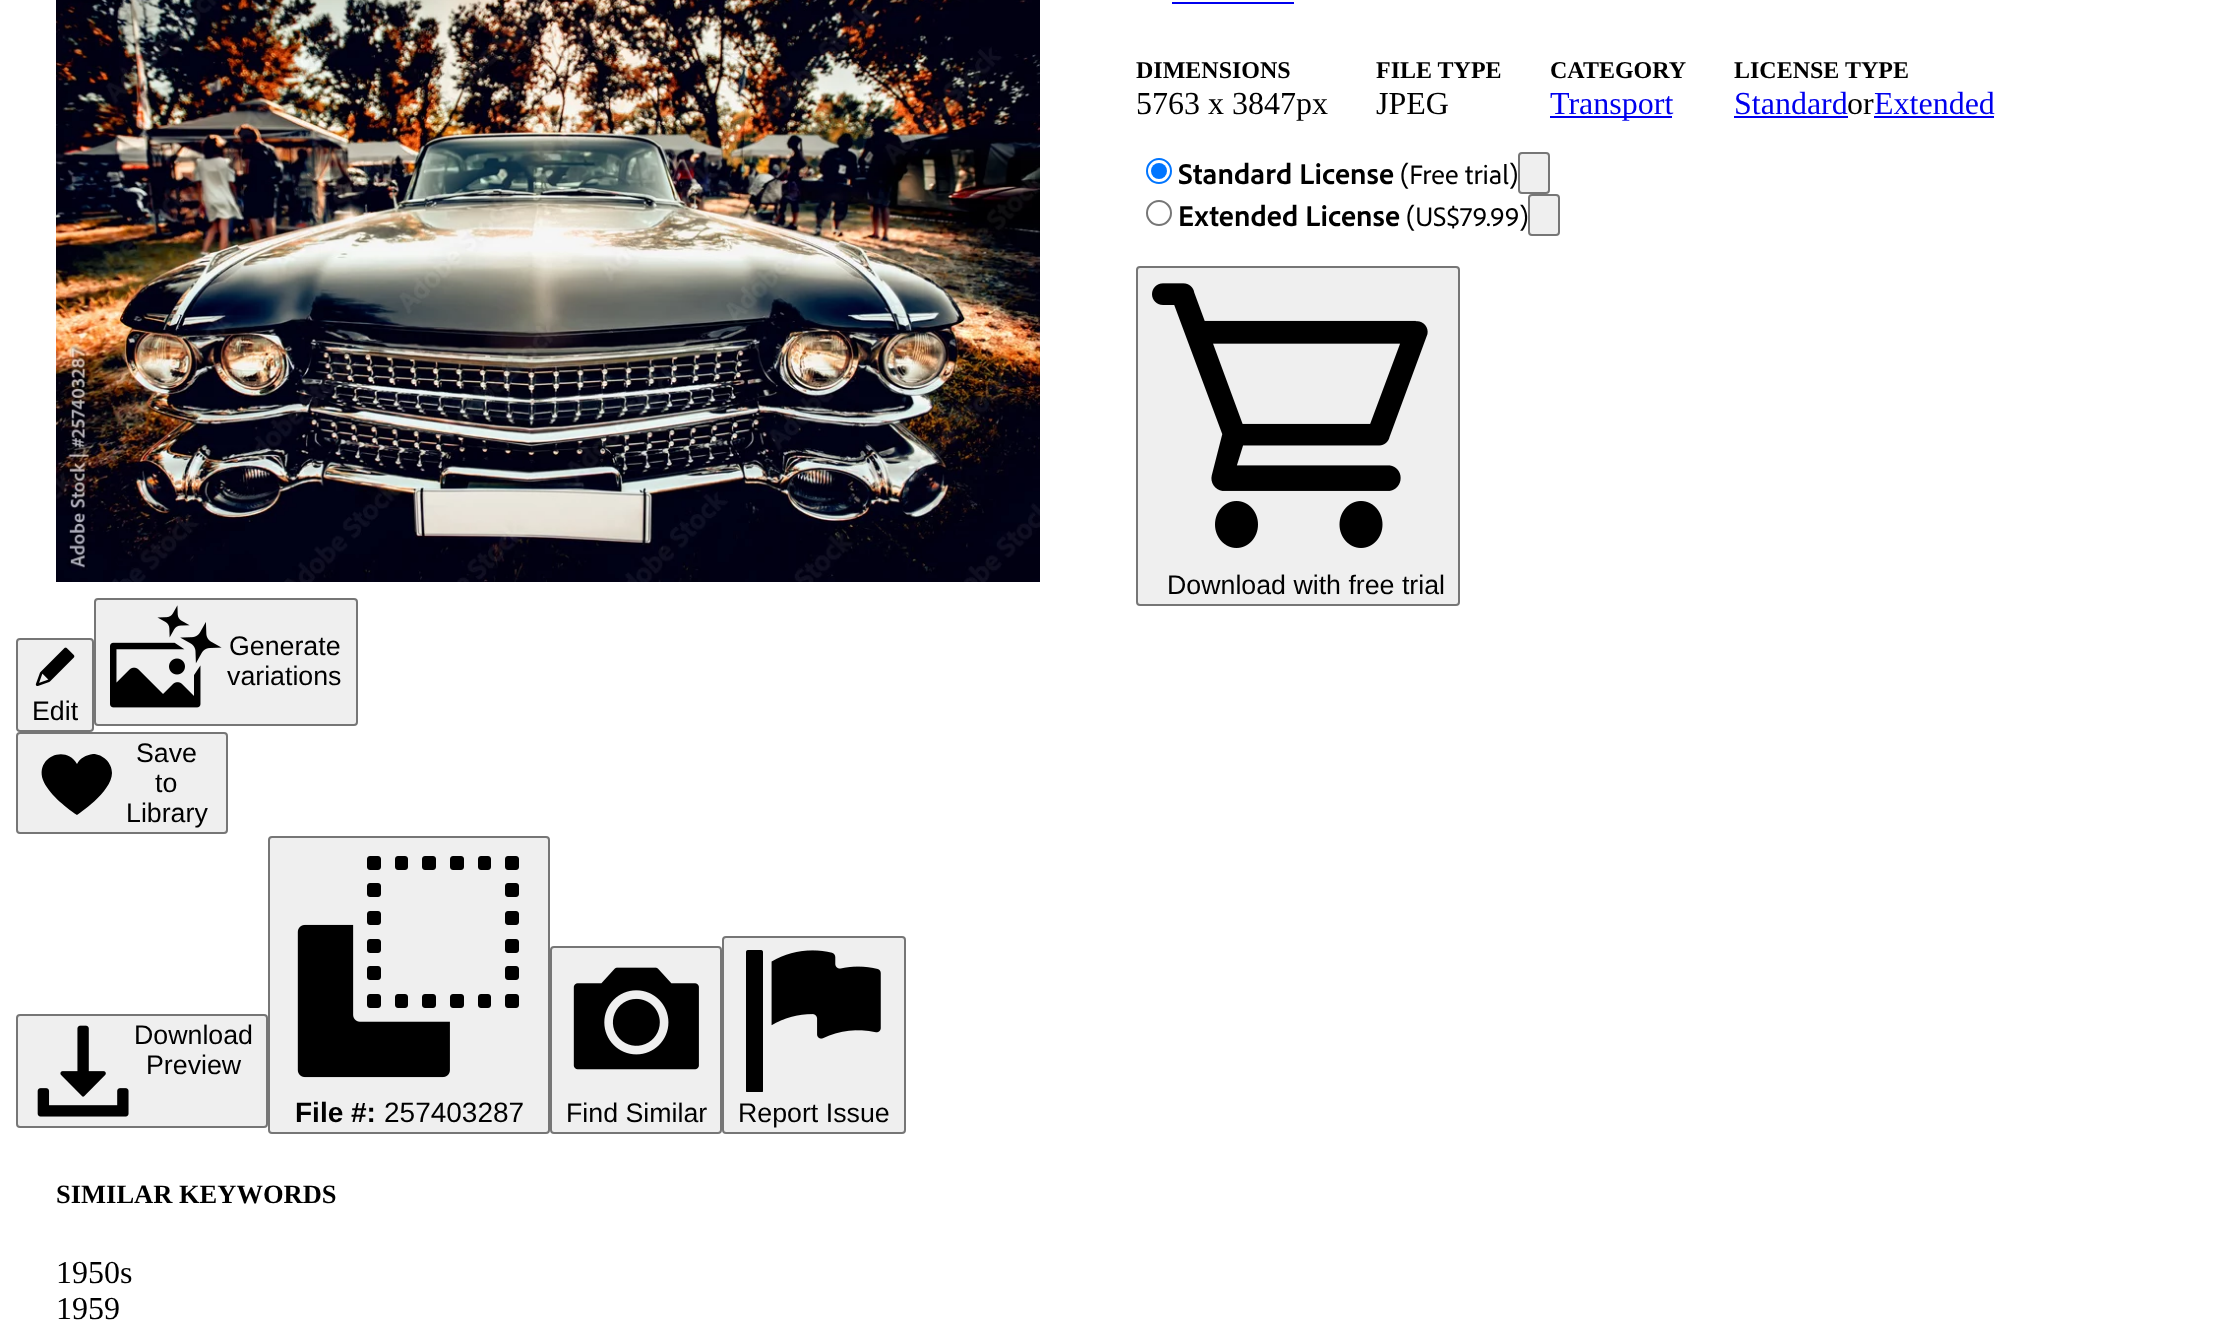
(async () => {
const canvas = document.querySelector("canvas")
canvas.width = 2216
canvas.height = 1336
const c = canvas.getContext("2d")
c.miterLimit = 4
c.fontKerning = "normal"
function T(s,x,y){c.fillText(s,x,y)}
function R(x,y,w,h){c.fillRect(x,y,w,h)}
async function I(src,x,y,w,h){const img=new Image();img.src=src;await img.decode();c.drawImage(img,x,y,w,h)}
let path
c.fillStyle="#fff"
R(0,0,2216,1336)
c.fillStyle="#00e"
R(1172,2,122,2)
c.font="bold 24px Liberation Serif"
c.fillStyle="#000"
T("DIMENSIONS",1136,78)
c.font="32px Liberation Serif"
T("5763 x 3847px",1136,114)
c.font="bold 24px Liberation Serif"
T("FILE TYPE",1376,78)
c.font="32px Liberation Serif"
T("JPEG",1376,114)
c.font="bold 24px Liberation Serif"
T("CATEGORY",1550,78)
c.fillStyle="#00e"
R(1550,116,122,2)
c.font="32px Liberation Serif"
T("Transport",1550,114)
c.font="bold 24px Liberation Serif"
c.fillStyle="#000"
T("LICENSE TYPE",1734,78)
c.font="32px Liberation Serif"
c.fillStyle="#00e"
T("Standard",1734,114)
c.fillStyle="#000"
T("or",1847,114)
c.fillStyle="#00e"
R(1734,116,114,2)
R(1874,116,120,2)
T("Extended",1874,114)
c.beginPath()
c.arc(1159,171,12,0,7)
c.strokeStyle="#0075ff"
c.lineWidth=2
c.stroke()
c.fillStyle="#0075ff"
c.beginPath()
c.arc(1159,171,8,0,7)
c.fill()
c.font="bold 30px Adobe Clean"
c.fillStyle="#000"
T("Standard License",1178,184)
c.font="28px Adobe Clean"
T("(Free trial)",1400,184)
c.fillStyle="#efefef"
c.beginPath()
c.roundRect(1519,153,30,40,3)
c.fill()
c.strokeStyle="#767676"
c.stroke()
c.beginPath()
c.arc(1159,213,12,0,7)
c.stroke()
c.font="bold 30px Adobe Clean"
c.fillStyle="#000"
T("Extended License",1178,226)
c.font="28px Adobe Clean"
T("(US$79.99)",1406,226)
c.fillStyle="#efefef"
c.beginPath()
c.roundRect(1529,195,30,40,3)
c.fill()
c.stroke()
c.beginPath()
c.roundRect(1137,267,322,338,3)
c.fill()
c.stroke()
await I("1.png",1152,283,276,265)
c.font="26.75px Liberation Sans"
c.fillStyle="#000"
T("Download with free trial",1167,594)
await I("2.png",56,0,984,582)
c.fillStyle="#efefef"
c.beginPath()
c.roundRect(95,599,262,126,3)
c.fill()
c.stroke()
await I("3.png",110,605,112,103)
c.fillStyle="#000"
T("Generate",229,655)
T("variations",227,685)
c.fillStyle="#efefef"
c.beginPath()
c.roundRect(17,639,76,92,3)
c.fill()
c.stroke()
await I("4.png",35,647,40,39)
c.fillStyle="#000"
T("Edit",32,720)
c.fillStyle="#efefef"
c.beginPath()
c.roundRect(17,733,210,100,3)
c.fill()
c.stroke()
c.fillStyle="#000"
path = new Path2D("M93 754c-7 1-13 4-16 10c-12-20-42-6-34 16c5 13 22 27 34 35c0 0 35-23 35-42c0-10-9-19-19-19z")
c.fill(path,"evenodd")
T("Save",136,762)
T("to",155,792)
T("Library",126,822)
c.fillStyle="#efefef"
c.beginPath()
c.roundRect(17,1015,250,112,3)
c.fill()
c.stroke()
await I("5.png",37,1025,92,92)
c.fillStyle="#000"
T("Download",134,1044)
T("Preview",146,1074)
c.fillStyle="#efefef"
c.beginPath()
c.roundRect(269,837,280,296,3)
c.fill()
c.stroke()
await I("6.png",297,856,222,222)
c.font="bold 28px Liberation Sans"
c.fillStyle="#000"
T("File #:",295,1122)
c.font="28px Liberation Sans"
T("257403287",384,1122)
c.fillStyle="#efefef"
c.beginPath()
c.roundRect(551,947,170,186,3)
c.fill()
c.stroke()
await I("7.png",573,967,126,103)
c.font="26.75px Liberation Sans"
c.fillStyle="#000"
T("Find Similar",566,1122)
c.fillStyle="#efefef"
c.beginPath()
c.roundRect(723,937,182,196,3)
c.fill()
c.stroke()
await I("8.png",746,950,135,142)
c.fillStyle="#000"
T("Report Issue",738,1122)
c.font="bold 26.5px Liberation Serif"
T("SIMILAR KEYWORDS",56,1203)
c.font="32px Liberation Serif"
T("1950s",56,1283)
T("1959",56,1319)
})()
